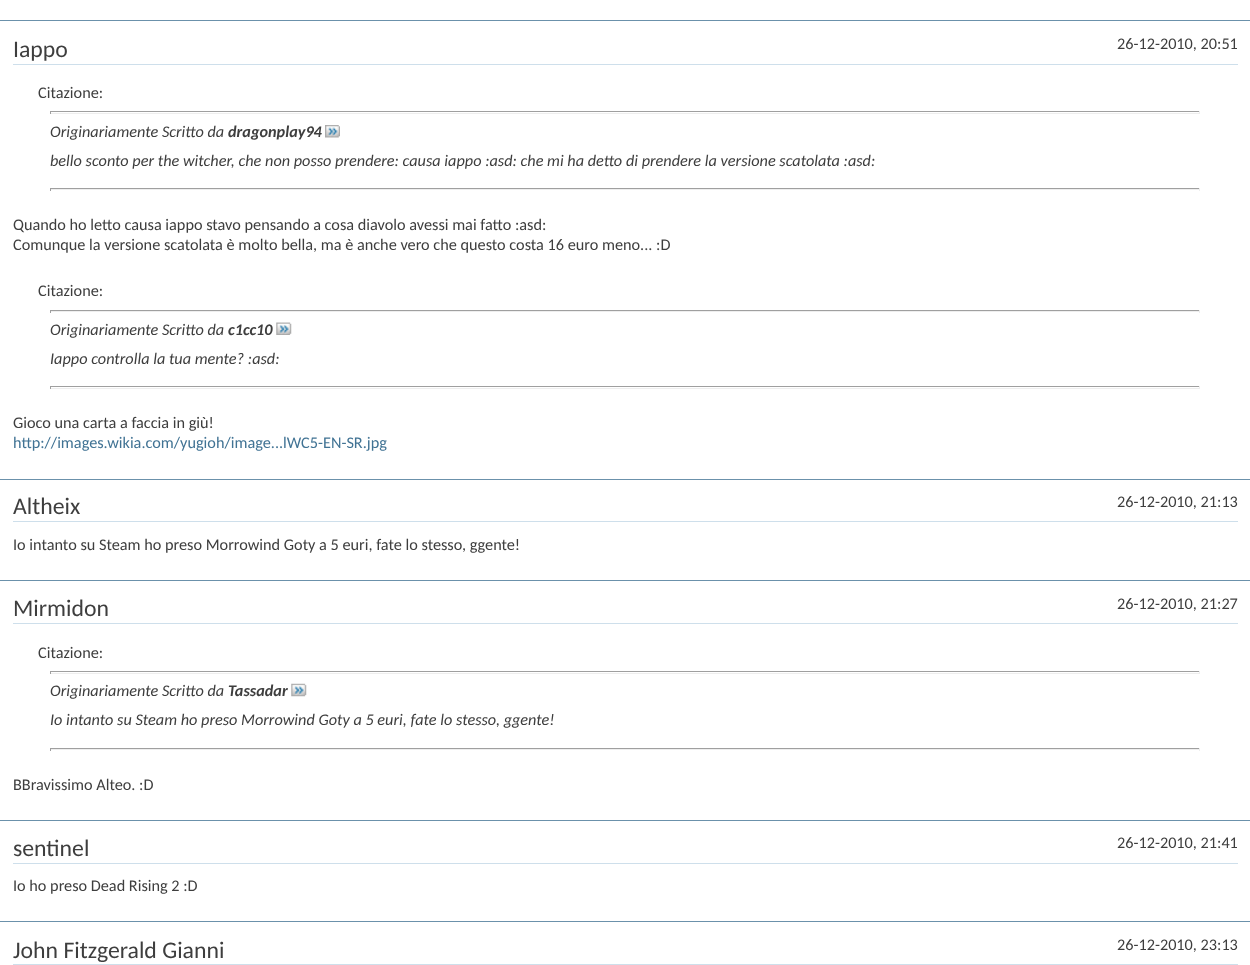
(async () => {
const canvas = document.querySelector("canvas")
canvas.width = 1250
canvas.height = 965
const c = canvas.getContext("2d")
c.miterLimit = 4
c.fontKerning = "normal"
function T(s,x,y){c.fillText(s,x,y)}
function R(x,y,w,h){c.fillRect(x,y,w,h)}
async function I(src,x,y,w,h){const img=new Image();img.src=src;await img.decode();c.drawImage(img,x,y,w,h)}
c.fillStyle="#fff"
R(0,0,1250,965)
c.fillStyle="#6b91ab"
R(0,20,1250,1)
c.fillStyle="#cedfeb"
R(13,64,1225,1)
c.font="23.75px Carlito"
c.fillStyle="#3e3e3e"
T("Iappo",13,57)
c.font="16.25px Carlito"
T("26-12-2010, 20:51",1117,49)
T("Citazione:",38,98)
c.fillStyle="#9f9f9f"
R(50,111,1150,1)
c.fillStyle="#eee"
R(1199,111,1,3)
R(50,113,1150,1)
c.fillStyle="#9f9f9f"
R(50,111,1,3)
c.font="italic 16.25px Carlito"
c.fillStyle="#3e3e3e"
T("Originariamente Scritto da",50,137)
c.font="italic bold 16.25px Carlito"
T("dragonplay94",228,137)
await I("1.png",325,125,15,13)
c.font="italic 16.25px Carlito"
T("bello sconto per the witcher, che non posso prendere: causa iappo :asd: che mi ha detto di prendere la versione scatolata :asd:",50,166)
c.fillStyle="#9f9f9f"
R(50,188,1150,1)
c.fillStyle="#eee"
R(1199,188,1,3)
R(50,189,1150,1)
c.fillStyle="#9f9f9f"
R(50,188,1,3)
c.font="16.25px Carlito"
c.fillStyle="#3e3e3e"
T("Quando ho letto causa iappo stavo pensando a cosa diavolo avessi mai fatto :asd:",13,230)
T("Comunque la versione scatolata è molto bella, ma è anche vero che questo costa 16 euro meno... :D",13,250)
T("Citazione:",38,296)
c.fillStyle="#9f9f9f"
R(50,310,1150,1)
c.fillStyle="#eee"
R(1199,310,1,3)
R(50,311,1150,1)
c.fillStyle="#9f9f9f"
R(50,310,1,3)
c.font="italic 16.25px Carlito"
c.fillStyle="#3e3e3e"
T("Originariamente Scritto da",50,335)
c.font="italic bold 16.25px Carlito"
T("c1cc10",228,335)
await I("2.png",276,322,16,13)
c.font="italic 16.25px Carlito"
T("Iappo controlla la tua mente? :asd:",50,364)
c.fillStyle="#9f9f9f"
R(50,386,1150,1)
c.fillStyle="#eee"
R(1199,386,1,3)
R(50,388,1150,1)
c.fillStyle="#9f9f9f"
R(50,386,1,3)
c.font="16.25px Carlito"
c.fillStyle="#3e3e3e"
T("Gioco una carta a faccia in giù!",13,428)
c.fillStyle="#417394"
T("http://images.wikia.com/yugioh/image...lWC5-EN-SR.jpg",13,448)
c.fillStyle="#6b91ab"
R(0,479,1250,1)
c.fillStyle="#cedfeb"
R(13,521,1225,1)
c.font="23.75px Carlito"
c.fillStyle="#3e3e3e"
T("Altheix",13,514)
c.font="16.25px Carlito"
T("26-12-2010, 21:13",1117,507)
T("Io intanto su Steam ho preso Morrowind Goty a 5 euri, fate lo stesso, ggente!",13,550)
c.fillStyle="#6b91ab"
R(0,580,1250,1)
c.fillStyle="#cedfeb"
R(13,623,1225,1)
c.font="23.75px Carlito"
c.fillStyle="#3e3e3e"
T("Mirmidon",13,616)
c.font="16.25px Carlito"
T("26-12-2010, 21:27",1117,609)
T("Citazione:",38,658)
c.fillStyle="#9f9f9f"
R(50,671,1150,1)
c.fillStyle="#eee"
R(1199,671,1,3)
R(50,673,1150,1)
c.fillStyle="#9f9f9f"
R(50,671,1,3)
c.font="italic 16.25px Carlito"
c.fillStyle="#3e3e3e"
T("Originariamente Scritto da",50,696)
c.font="italic bold 16.25px Carlito"
T("Tassadar",228,696)
await I("3.png",291,683,16,14)
c.font="italic 16.25px Carlito"
T("Io intanto su Steam ho preso Morrowind Goty a 5 euri, fate lo stesso, ggente!",50,725)
c.fillStyle="#9f9f9f"
R(50,748,1150,1)
c.fillStyle="#eee"
R(1199,748,1,3)
R(50,749,1150,1)
c.fillStyle="#9f9f9f"
R(50,748,1,3)
c.font="16.25px Carlito"
c.fillStyle="#3e3e3e"
T("BBravissimo Alteo. :D",13,790)
c.fillStyle="#6b91ab"
R(0,820,1250,1)
c.fillStyle="#cedfeb"
R(13,863,1225,1)
c.font="23.75px Carlito"
c.fillStyle="#3e3e3e"
T("sentinel",13,856)
c.font="16.25px Carlito"
T("26-12-2010, 21:41",1117,848)
T("Io ho preso Dead Rising 2 :D",13,891)
c.fillStyle="#6b91ab"
R(0,921,1250,1)
c.fillStyle="#cedfeb"
R(13,964,1225,1)
c.font="23.75px Carlito"
c.fillStyle="#3e3e3e"
T("John Fitzgerald Gianni",13,958)
c.font="16.25px Carlito"
T("26-12-2010, 23:13",1117,950)
})()
